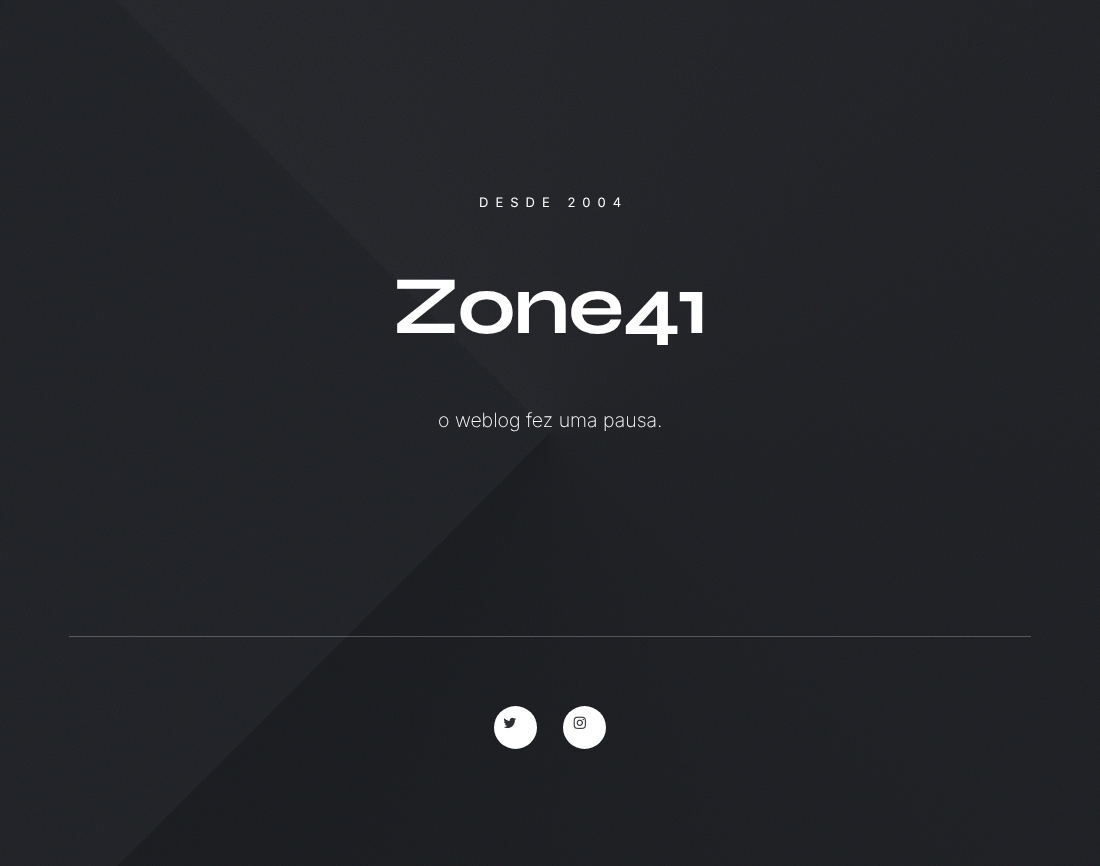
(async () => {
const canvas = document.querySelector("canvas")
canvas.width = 1100
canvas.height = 866
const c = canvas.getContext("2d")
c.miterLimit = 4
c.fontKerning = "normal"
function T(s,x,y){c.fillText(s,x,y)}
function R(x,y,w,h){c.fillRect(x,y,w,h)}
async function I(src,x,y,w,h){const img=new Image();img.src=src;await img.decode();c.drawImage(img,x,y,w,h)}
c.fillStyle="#fff"
R(0,0,1100,866)
await I("1.png",0,0,1100,866)
c.letterSpacing="7px"
c.font="13px Inter"
T("DESDE 2004",479,207)
c.letterSpacing="-2.25px"
c.font="bold 82.5px Syne"
T("Zone41",392,333)
c.letterSpacing="0px"
c.font="200 19.5px Inter"
T("o weblog fez uma pausa.",438,427)
c.fillStyle="#ffffff40"
R(69,636,962,1)
c.fillStyle="#fff"
c.beginPath()
c.arc(515.5,727.5,21.5,0,7)
c.fill()
await I("2.png",503,717,13,12)
c.beginPath()
c.arc(584.5,727.5,21.5,0,7)
c.fill()
await I("3.png",573,716,13,13)
})()
